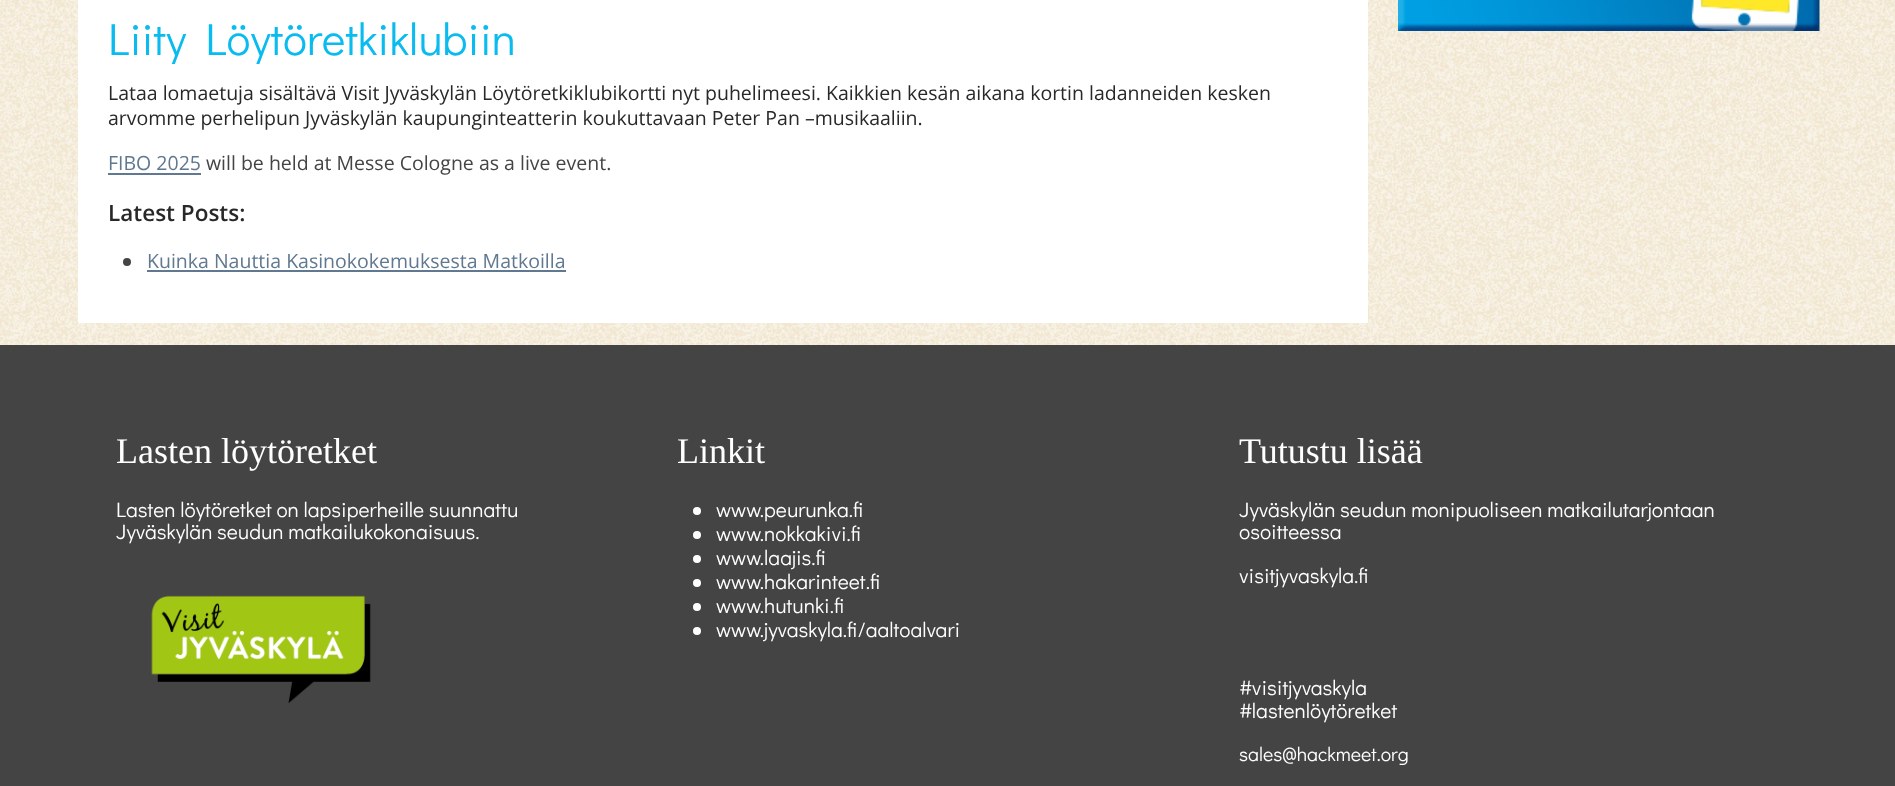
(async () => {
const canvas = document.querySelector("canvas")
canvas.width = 1895
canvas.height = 786
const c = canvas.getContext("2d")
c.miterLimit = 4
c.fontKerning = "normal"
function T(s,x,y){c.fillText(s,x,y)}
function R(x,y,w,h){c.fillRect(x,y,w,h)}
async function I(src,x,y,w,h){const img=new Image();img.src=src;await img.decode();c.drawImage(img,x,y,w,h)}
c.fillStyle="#fff"
R(0,0,1895,786)
await I("1.png",0,0,1895,345)
await I("2.png",1398,0,422,31)
R(78,0,1290,323)
c.font="45px Didact Gothic"
c.fillStyle="#0abbef"
T("Liity Löytöretkiklubiin",108,55)
c.font="19.5px Open Sans"
c.fillStyle="#292828"
T("Lataa lomaetuja sisältävä Visit Jyväskylän Löytöretkiklubikortti nyt puhelimeesi. Kaikkien kesän aikana kortin ladanneiden kesken",108,100)
T("arvomme perhelipun Jyväskylän kaupunginteatterin koukuttavaan Peter Pan –musikaaliin.",108,125)
c.fillStyle="#607890"
T("FIBO 2025",108,170)
R(108,173,93,2)
c.fillStyle="#444"
T("will be held at Messe Cologne as a live event.",206,170)
c.font="600 22.5px Open Sans"
c.fillStyle="#292828"
T("Latest Posts:",108,221)
c.fillStyle="#444"
c.beginPath()
c.arc(127,262,4,0,7)
c.fill()
c.font="19.5px Open Sans"
c.fillStyle="#607890"
T("Kuinka Nauttia Kasinokokemuksesta Matkoilla",147,268)
R(147,270,419,2)
c.fillStyle="#444"
R(0,345,1895,441)
c.font="36px Liberation Serif"
c.fillStyle="#fff"
T("Lasten löytöretket",116,463)
c.font="21px Didact Gothic"
T("Lasten löytöretket on lapsiperheille suunnattu",116,517)
T("Jyväskylän seudun matkailukokonaisuus.",116,539)
await I("3.png",151,595,220,108)
c.font="36px Liberation Serif"
T("Linkit",677,463)
c.beginPath()
c.arc(697,511,4,0,7)
c.fill()
c.font="21px Didact Gothic"
T("www.peurunka.fi",716,517)
c.beginPath()
c.arc(697,535,4,0,7)
c.fill()
T("www.nokkakivi.fi",716,541)
c.beginPath()
c.arc(697,559,4,0,7)
c.fill()
T("www.laajis.fi",716,565)
c.beginPath()
c.arc(697,583,4,0,7)
c.fill()
T("www.hakarinteet.fi",716,589)
c.beginPath()
c.arc(697,607,4,0,7)
c.fill()
T("www.hutunki.fi",716,613)
c.beginPath()
c.arc(697,631,4,0,7)
c.fill()
T("www.jyvaskyla.fi/aaltoalvari",716,637)
c.font="36px Liberation Serif"
T("Tutustu lisää",1239,463)
c.font="21px Didact Gothic"
T("Jyväskylän seudun monipuoliseen matkailutarjontaan",1239,517)
T("osoitteessa",1239,539)
T("visitjyvaskyla.fi",1239,583)
T("#visitjyvaskyla",1239,695)
T("#lastenlöytöretket",1239,718)
c.font="19.5px Didact Gothic"
T("sales@hackmeet.org",1239,761)
})()
